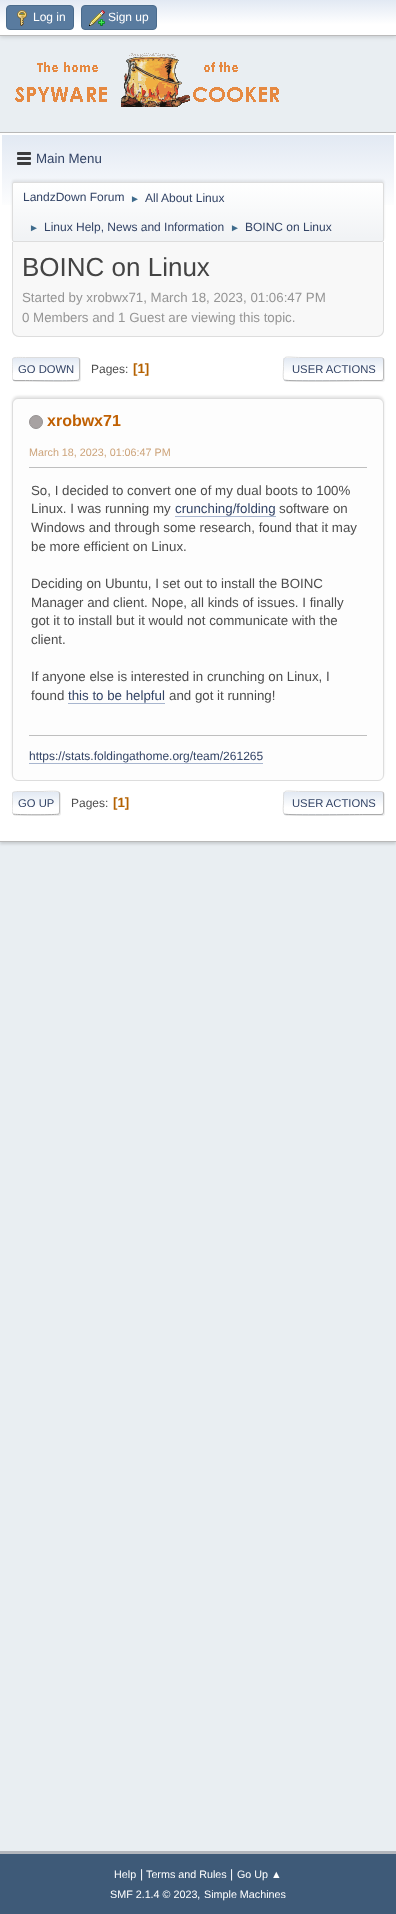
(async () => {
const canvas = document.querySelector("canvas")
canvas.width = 396
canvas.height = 1914
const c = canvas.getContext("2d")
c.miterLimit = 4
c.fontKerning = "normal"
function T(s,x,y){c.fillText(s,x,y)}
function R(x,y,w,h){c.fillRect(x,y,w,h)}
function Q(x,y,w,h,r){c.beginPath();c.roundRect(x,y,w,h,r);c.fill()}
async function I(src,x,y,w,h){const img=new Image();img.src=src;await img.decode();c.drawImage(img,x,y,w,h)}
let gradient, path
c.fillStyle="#e9eef2"
R(0,0,396,1914)
c.fillStyle="#00000029"
c.filter="blur(2px)"
c.beginPath()
c.rect(0,1,396,36)
c.fill()
c.filter="none"
gradient = c.createLinearGradient(198,0,198,35)
gradient.addColorStop(0,"#e2e9f3")
gradient.addColorStop(.7,"#fff")
c.fillStyle = gradient
R(0,0,396,35)
c.fillStyle="#bbb"
R(0,35,396,1)
c.fillStyle="#597b9f"
c.beginPath()
c.roundRect(6.5,5.5,67,24,3.5)
c.fill()
c.strokeStyle="#4a6b8c"
c.stroke()
await I("1.png",17,10,10,16)
c.font="12px Liberation Sans"
c.fillStyle="#fff"
T("Log in",33,21)
c.fillStyle="#597b9f"
c.beginPath()
c.roundRect(81.5,5.5,75,24,3.5)
c.fill()
c.stroke()
await I("2.png",89,10,16,16)
c.fillStyle="#fff"
T("Sign up",108,21)
await I("3.png",15,53,264,54)
c.fillStyle="#00000024"
c.filter="blur(1.5px)"
c.beginPath()
c.rect(0,134,396,710)
c.fill()
c.filter="none"
c.fillStyle="#fff"
R(0,133,396,708)
c.fillStyle="#b8b8b8"
R(0,132,396,1)
R(0,841,396,1)
gradient = c.createLinearGradient(198,135,198,244)
gradient.addColorStop(0,"#e2e9f3")
gradient.addColorStop(.7,"#fff")
c.fillStyle = gradient
R(2,135,392,70)
await I("4.png",17,152,14,13)
c.font="13.3px Liberation Sans"
c.fillStyle="#346"
T("Main Menu",36,163)
c.fillStyle="#00000014"
c.filter="blur(1px)"
c.beginPath()
c.roundRect(12,180,372,60,2)
c.fill()
c.filter="none"
c.save()
c.beginPath()
c.roundRect(12,182,372,60,2)
c.clip()
gradient = c.createLinearGradient(198,183,198,241)
gradient.addColorStop(0,"#fff")
gradient.addColorStop(.95,"#f1f3f5")
c.fillStyle = gradient
R(12,183,372,58)
c.restore()
c.beginPath()
c.roundRect(12.5,182.5,371,59,1.5)
c.strokeStyle="#ddd"
c.stroke()
c.font="12px Liberation Sans"
c.fillStyle="#346"
T("LandzDown Forum",23,201)
c.font="10px Liberation Sans"
c.fillStyle="#3f6b8c"
T("►",130,202)
c.font="12px Liberation Sans"
c.fillStyle="#346"
T("All About Linux",145,202)
c.font="10px Liberation Sans"
c.fillStyle="#3f6b8c"
T("►",29,231)
c.font="12px Liberation Sans"
c.fillStyle="#346"
T("Linux Help, News and Information",44,231)
c.font="10px Liberation Sans"
c.fillStyle="#3f6b8c"
T("►",230,231)
c.font="12px Liberation Sans"
c.fillStyle="#346"
T("BOINC on Linux",245,231)
c.fillStyle="#f8f8f8"
c.beginPath()
c.roundRect(12,242,372,95,[0,0,7,7])
c.fill()
c.fillStyle="#ddd"
path = new Path2D("M12 242h372v88c0 4-3 7-7 7h-358c-4 0-7-3-7-7zm1 0h370v88c0 3-3 6-6 6h-358c-3 0-6-3-6-6z")
c.fill(path,"evenodd")
c.font="26px Liberation Sans"
c.fillStyle="#444"
T("BOINC on Linux",22,276)
c.font="13.3px Liberation Sans"
c.fillStyle="#959595"
T("Started by xrobwx71, March 18, 2023, 01:06:47 PM",22,302)
T("0 Members and 1 Guest are viewing this topic.",22,322)
c.fillStyle="#dddddd91"
c.filter="blur(0.5px)"
c.beginPath()
c.roundRect(13,358,68,24,3)
c.fill()
c.filter="none"
c.save()
c.beginPath()
c.roundRect(12,357,68,24,3)
c.clip()
gradient = c.createLinearGradient(46,358,46,380)
gradient.addColorStop(0,"#e2e9f3")
gradient.addColorStop(.7,"#fff")
c.fillStyle = gradient
R(12,358,68,22)
gradient = c.createLinearGradient(46,380,46,402)
gradient.addColorStop(0,"#e2e9f3")
gradient.addColorStop(.7,"#fff")
c.fillStyle = gradient
R(12,380,68,1)
c.restore()
path = new Path2D("M79 358c0 .5 .5 1.5 .5 2v18c0 .5-.5 1.5-.5 2")
c.strokeStyle="#bbb"
c.stroke(path)
path = new Path2D("M79 380h-.5c-2 1.5-47 .5-53 .5h-10.5l-2-.5")
c.strokeStyle="#aaa"
c.stroke(path)
c.save()
c.beginPath()
c.rect(12,352,372,34)
c.clip()
path = new Path2D("M13 380c-1.5-2-.5-6-.5-8c0-16.5-3.5-14.5 13-14.5h51.5l2 .5")
c.strokeStyle="#ddd"
c.stroke(path)
c.restore()
c.font="11.25px Liberation Sans"
c.fillStyle="#346"
T("GO DOWN",18,373)
c.font="12px Liberation Sans"
c.fillStyle="#4d4d4d"
T("Pages:",91,373)
c.font="bold 13.3px Liberation Sans"
c.fillStyle="#b46100"
T("[1]",133,373)
c.save()
path = new Path2D("M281 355h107v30h-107zm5 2h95c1.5 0 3 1.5 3 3v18c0 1.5-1.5 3-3 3h-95c-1.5 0-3-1.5-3-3v-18c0-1.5 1.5-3 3-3z")
c.clip(path,"evenodd")
c.fillStyle="#dddddd91"
c.filter="blur(0.5px)"
c.beginPath()
c.roundRect(284,358,101,24,3)
c.fill()
c.filter="none"
c.restore()
c.fillStyle="#fff"
Q(283,357,101,24,3)
c.save()
c.beginPath()
c.roundRect(283,357,101,24,3)
c.clip()
gradient = c.createLinearGradient(334,358,334,380)
gradient.addColorStop(0,"#e2e9f3")
gradient.addColorStop(.7,"#fff")
c.fillStyle = gradient
R(283,358,101,22)
gradient = c.createLinearGradient(334,380,334,402)
gradient.addColorStop(0,"#e2e9f3")
gradient.addColorStop(.7,"#fff")
c.fillStyle = gradient
R(283,380,101,1)
c.restore()
path = new Path2D("M383 358c0 .5 .5 1.5 .5 2v18c0 .5-.5 1.5-.5 2")
c.strokeStyle="#bbb"
c.stroke(path)
path = new Path2D("M383 380l-2 .5h-16c-8 0-78.5 1-80.5-.5h-.5")
c.strokeStyle="#aaa"
c.stroke(path)
path = new Path2D("M284 380c-1.5-2-.5-9-.5-11c0-15.5-1-11.5 18.5-11.5h79l2 .5")
c.strokeStyle="#ddd"
c.stroke(path)
c.font="11.25px Liberation Sans"
c.fillStyle="#346"
T("USER ACTIONS",292,373)
c.fillStyle="#0000001a"
c.filter="blur(1px)"
c.beginPath()
c.roundRect(12,396,372,383,6)
c.fill()
c.filter="none"
c.fillStyle="#fdfdfd"
c.beginPath()
c.roundRect(12.5,398.5,371,382,5.5)
c.fill()
c.stroke()
c.fillStyle="#a7a2a2"
c.beginPath()
c.arc(36,422,6.5,0,7)
c.fill()
c.strokeStyle="#969292"
c.stroke()
c.font="bold 16px Liberation Sans"
c.fillStyle="#c06002"
T("xrobwx71",47,426)
c.font="10.75px Liberation Sans"
c.fillStyle="#cda47b"
T("March 18, 2023, 01:06:47 PM",29,456)
c.fillStyle="#bfbfbf"
R(29,467,338,1)
c.font="13.3px Liberation Sans"
c.fillStyle="#4d4d4d"
T("So, I decided to convert one of my dual boots to 100%",31,495)
T("Linux. I was running my",31,513)
c.fillStyle="#346"
T("crunching/folding",175,513)
c.fillStyle="#a8b6cf"
R(175,516,101,1)
c.fillStyle="#4d4d4d"
T("software on",279,513)
T("Windows and through some research, found that it may",31,532)
T("be more efficient on Linux.",31,551)
T("Deciding on Ubuntu, I set out to install the BOINC",31,588)
T("Manager and client. Nope, all kinds of issues. I finally",31,607)
T("got it to install but it would not communicate with the",31,625)
T("client.",31,644)
T("If anyone else is interested in crunching on Linux, I",31,681)
T("found",31,700)
c.fillStyle="#346"
T("this to be helpful",68,700)
c.fillStyle="#a8b6cf"
R(68,703,97,1)
c.fillStyle="#4d4d4d"
T("and got it running!",169,700)
c.fillStyle="#bfbfbf"
R(29,735,338,1)
c.font="12px Liberation Sans"
c.fillStyle="#346"
T("https://stats.foldingathome.org/team/261265",29,760)
c.fillStyle="#a8b6cf"
R(29,763,234,1)
c.fillStyle="#dddddd91"
c.filter="blur(0.5px)"
c.beginPath()
c.roundRect(13,792,48,24,3)
c.fill()
c.filter="none"
c.fillStyle="#fff"
Q(12,791,48,24,3)
c.save()
c.beginPath()
c.roundRect(12,791,48,24,3)
c.clip()
gradient = c.createLinearGradient(36,792,36,814)
gradient.addColorStop(0,"#e2e9f3")
gradient.addColorStop(.7,"#fff")
c.fillStyle = gradient
R(12,792,48,22)
c.restore()
path = new Path2D("M59 792c0 .5 .5 1.5 .5 2v18c0 .5-.5 1.5-.5 2")
c.strokeStyle="#bbb"
c.stroke(path)
path = new Path2D("M59 814c-1.5 1-44.5 1-46 0")
c.strokeStyle="#aaa"
c.stroke(path)
c.save()
c.beginPath()
c.rect(12,786,372,34)
c.clip()
path = new Path2D("M13 814c-1.5-2-.5-9-.5-11c0-12-2.5-11.5 9.5-11.5h21c2.5 0 14-1 16 .5")
c.strokeStyle="#ddd"
c.stroke(path)
c.restore()
c.font="11.25px Liberation Sans"
c.fillStyle="#346"
T("GO UP",18,807)
c.font="12px Liberation Sans"
c.fillStyle="#4d4d4d"
T("Pages:",71,807)
c.font="bold 13.3px Liberation Sans"
c.fillStyle="#b46100"
T("[1]",113,807)
c.save()
path = new Path2D("M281 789h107v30h-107zm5 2h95c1.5 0 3 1.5 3 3v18c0 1.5-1.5 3-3 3h-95c-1.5 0-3-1.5-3-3v-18c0-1.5 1.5-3 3-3z")
c.clip(path,"evenodd")
c.fillStyle="#dddddd91"
c.filter="blur(0.5px)"
c.beginPath()
c.roundRect(284,792,101,24,3)
c.fill()
c.filter="none"
c.restore()
c.fillStyle="#fff"
Q(283,791,101,24,3)
c.save()
c.beginPath()
c.roundRect(283,791,101,24,3)
c.clip()
gradient = c.createLinearGradient(334,792,334,814)
gradient.addColorStop(0,"#e2e9f3")
gradient.addColorStop(.7,"#fff")
c.fillStyle = gradient
R(283,792,101,22)
gradient = c.createLinearGradient(334,814,334,836)
gradient.addColorStop(0,"#e2e9f3")
gradient.addColorStop(.7,"#fff")
c.fillStyle = gradient
R(283,814,101,1)
c.restore()
path = new Path2D("M383 792c0 .5 .5 1.5 .5 2v18c0 .5-.5 1.5-.5 2")
c.strokeStyle="#bbb"
c.stroke(path)
path = new Path2D("M383 814l-2 .5h-16c-8 0-78.5 1-80.5-.5h-.5")
c.strokeStyle="#aaa"
c.stroke(path)
path = new Path2D("M284 814c-1.5-2-.5-9-.5-11c0-15.5-1-11.5 18.5-11.5h79l2 .5")
c.strokeStyle="#ddd"
c.stroke(path)
c.font="11.25px Liberation Sans"
c.fillStyle="#346"
T("USER ACTIONS",292,807)
c.fillStyle="#3e5a78"
R(0,1854,396,60)
c.fillStyle="#b2b6bd"
R(0,1851,396,3)
c.font="10.75px Liberation Sans"
c.fillStyle="#fff"
T("Help",114,1878)
c.font="12px Liberation Sans"
T("|",140,1878)
c.font="10.75px Liberation Sans"
T("Terms and Rules",146,1878)
c.font="12px Liberation Sans"
T("|",230,1878)
c.font="10.75px Liberation Sans"
T("Go Up ▲",237,1878)
T("SMF 2.1.4 © 2023",110,1898)
c.font="12px Liberation Sans"
T(",",197,1898)
c.font="10.75px Liberation Sans"
T("Simple Machines",204,1898)
})()
